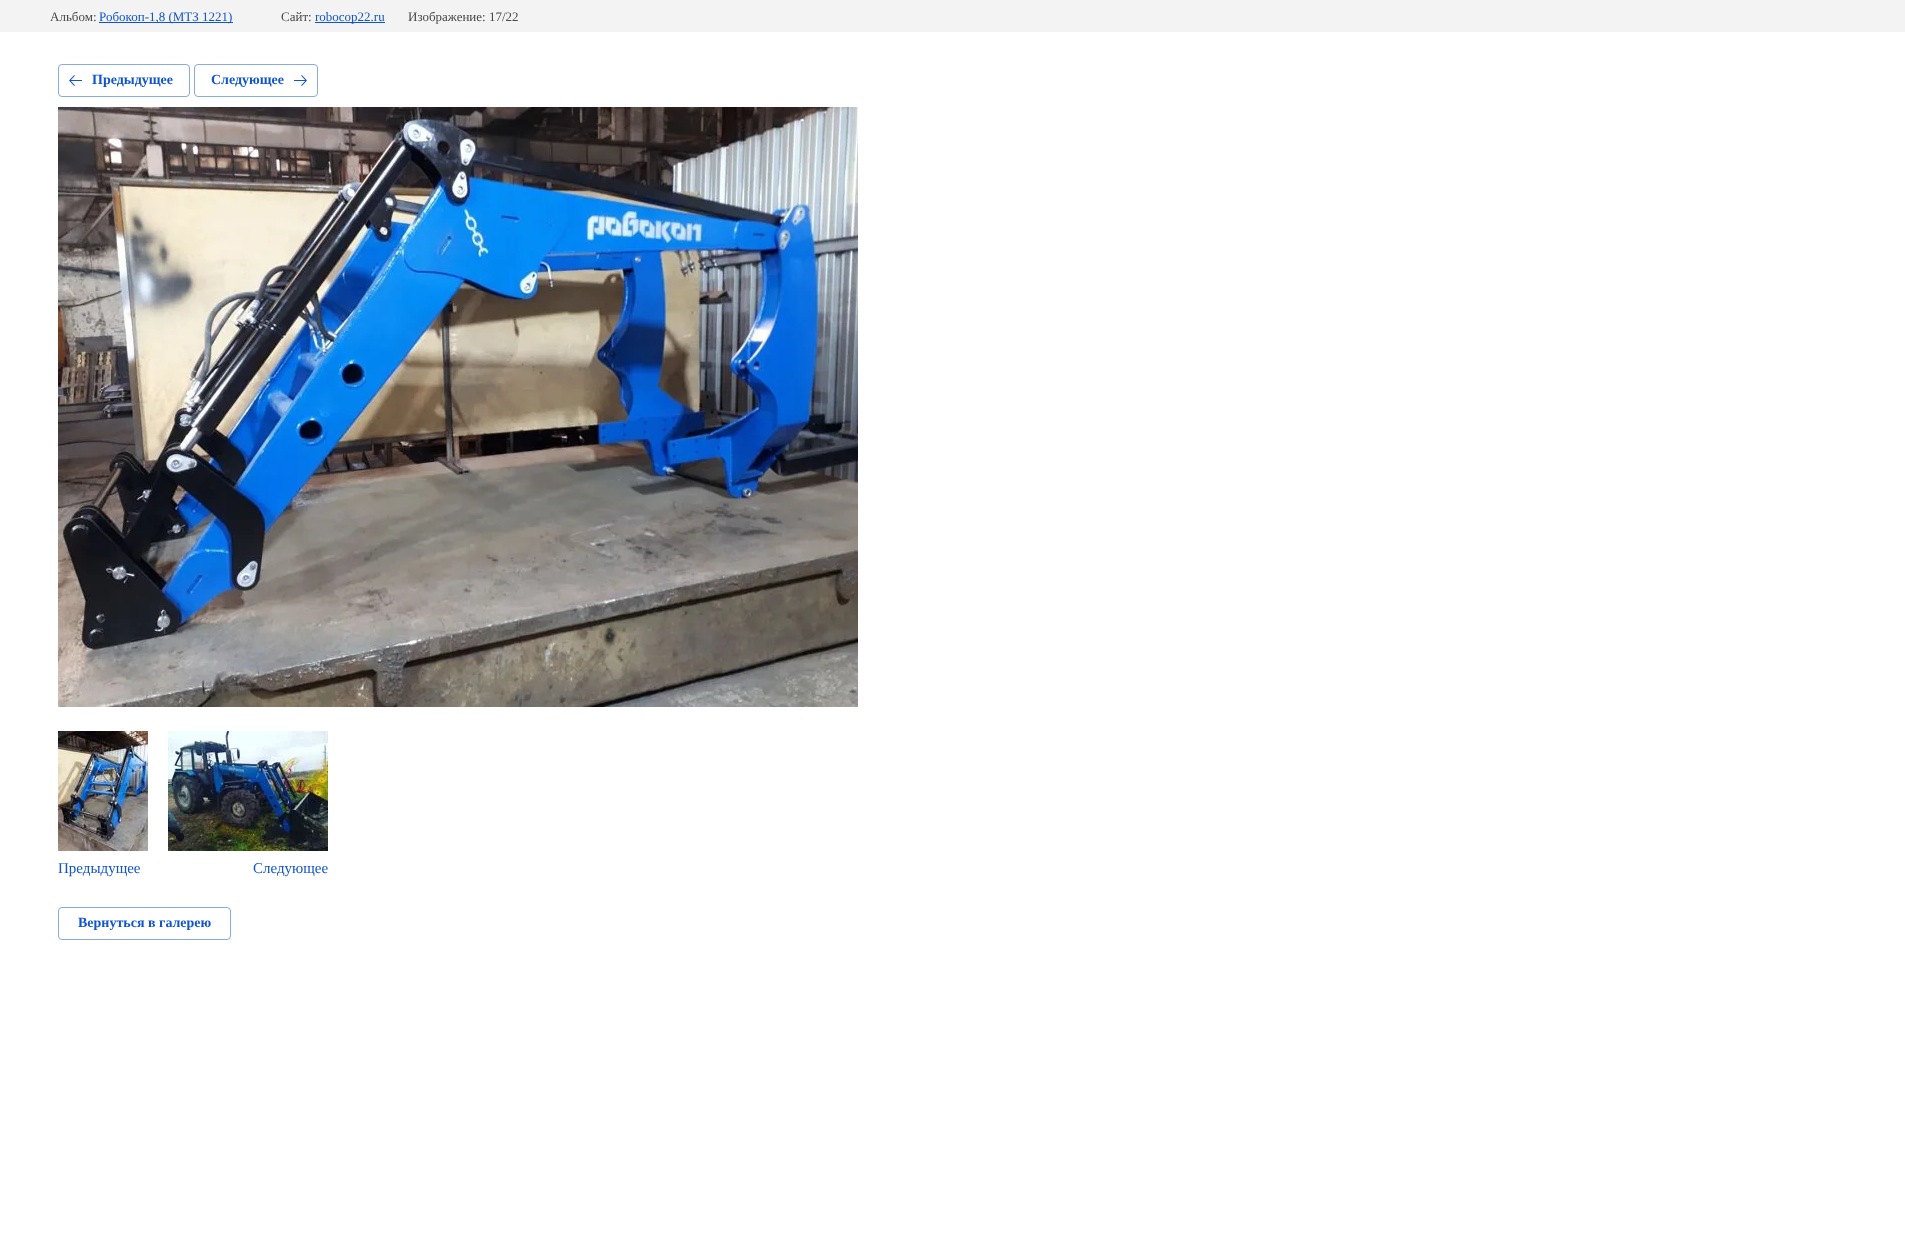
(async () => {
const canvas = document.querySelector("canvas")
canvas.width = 1905
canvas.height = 1245
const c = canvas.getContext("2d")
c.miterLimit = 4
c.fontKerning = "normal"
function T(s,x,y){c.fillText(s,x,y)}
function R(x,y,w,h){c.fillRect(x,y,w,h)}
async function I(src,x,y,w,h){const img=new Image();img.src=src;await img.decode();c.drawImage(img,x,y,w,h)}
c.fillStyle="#fff"
R(0,0,1905,1245)
c.fillStyle="#f3f3f3"
R(0,0,1905,32)
c.font="13px Liberation Serif"
c.fillStyle="#484848"
T("Альбом:",50,21)
c.fillStyle="#15c"
R(99,22,134,1)
T("Робокоп-1,8 (МТЗ 1221)",99,21)
c.fillStyle="#484848"
T("Сайт:",281,21)
c.fillStyle="#15c"
R(315,22,70,1)
T("robocop22.ru",315,21)
c.fillStyle="#484848"
T("Изображение: 17/22",408,21)
c.beginPath()
c.roundRect(58.5,64.5,131,32,3.5)
c.strokeStyle="#88aae6"
c.stroke()
await I("1.png",69,75,13,11)
c.font="bold 14px Liberation Serif"
c.fillStyle="#15c"
T("Предыдущее",92,84)
c.beginPath()
c.roundRect(194.5,64.5,123,32,3.5)
c.stroke()
T("Следующее",211,84)
await I("2.png",294,75,13,11)
await I("3.png",58,107,800,600)
await I("4.png",58,731,90,120)
c.font="15px Liberation Serif"
T("Предыдущее",58,873)
await I("5.png",168,731,160,120)
T("Следующее",253,873)
c.beginPath()
c.roundRect(58.5,907.5,172,32,3.5)
c.stroke()
c.font="bold 14px Liberation Serif"
T("Вернуться в галерею",78,927)
})()
